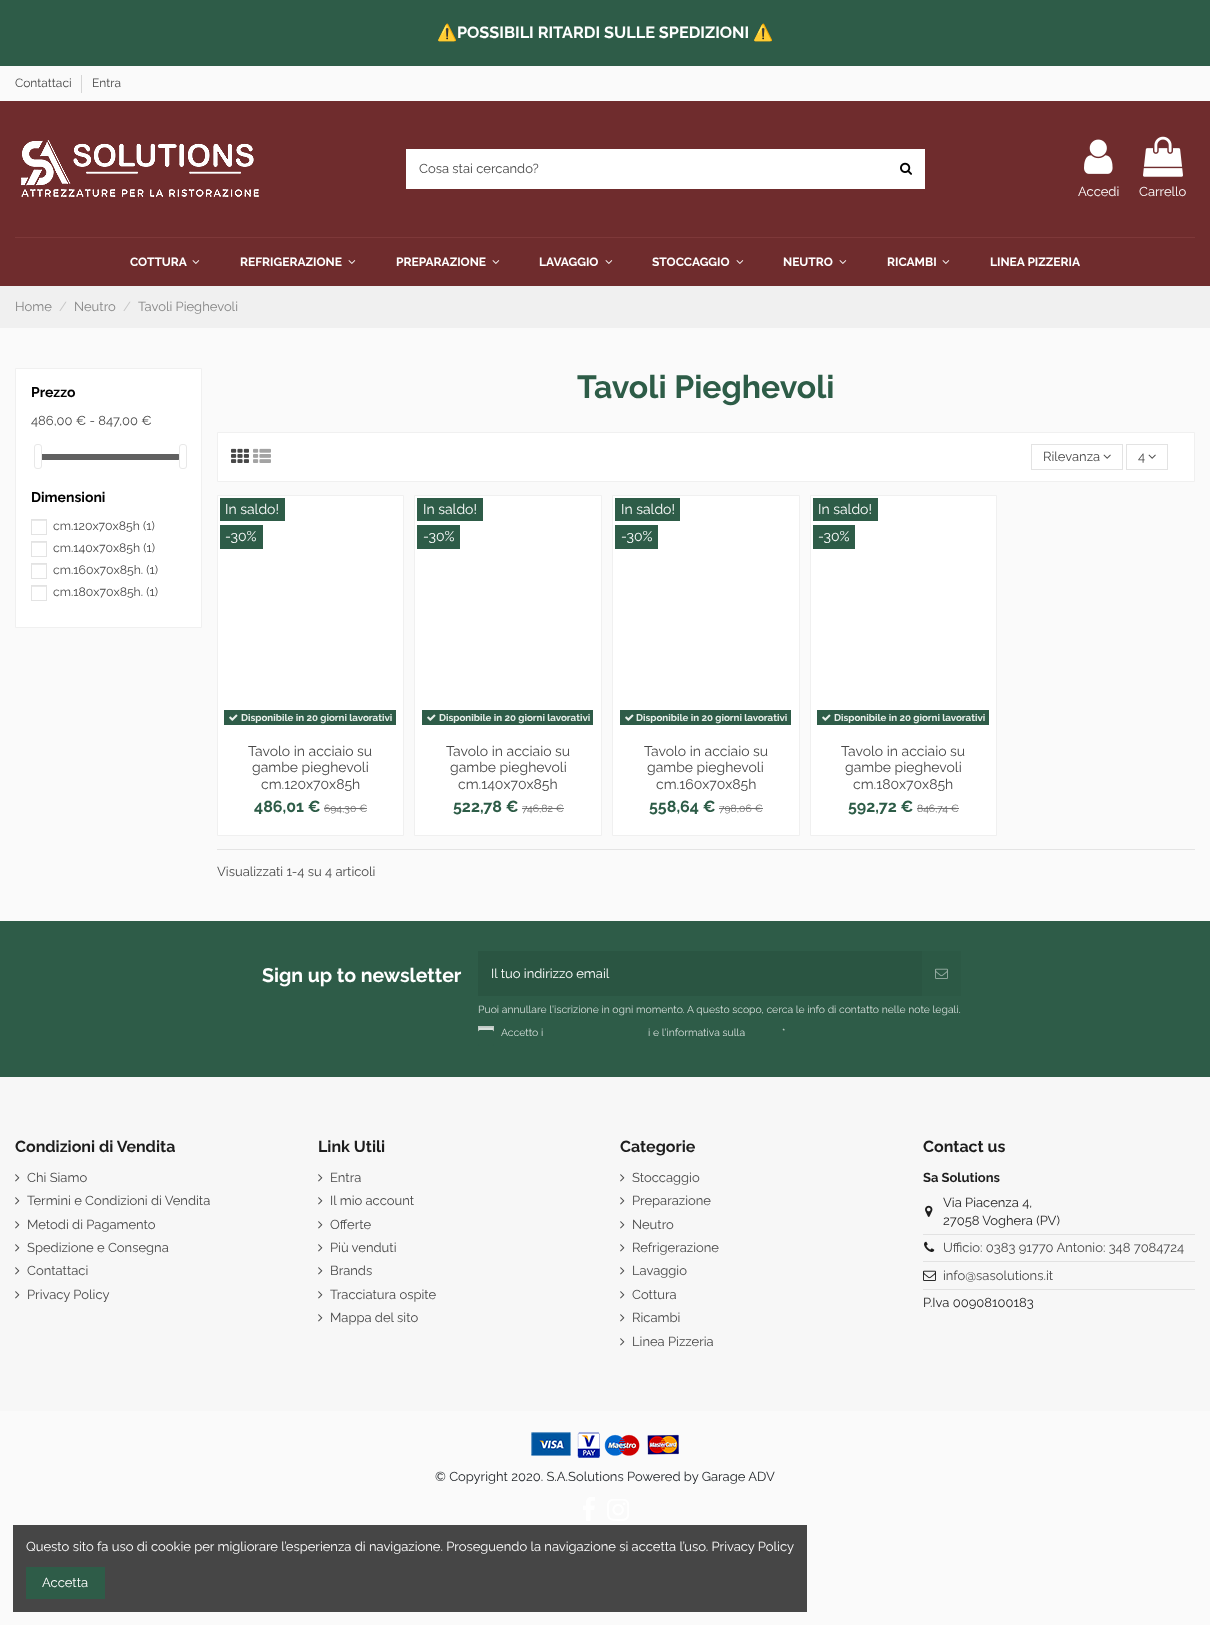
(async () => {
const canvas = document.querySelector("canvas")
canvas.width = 1210
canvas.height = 1625
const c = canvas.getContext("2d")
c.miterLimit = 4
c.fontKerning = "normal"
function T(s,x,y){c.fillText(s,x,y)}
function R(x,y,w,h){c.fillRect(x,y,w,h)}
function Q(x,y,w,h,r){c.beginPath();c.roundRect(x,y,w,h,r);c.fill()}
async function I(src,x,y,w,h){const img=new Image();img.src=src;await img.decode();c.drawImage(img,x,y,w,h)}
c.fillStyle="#fafafa"
R(0,0,1210,1625)
c.fillStyle="#6f2c2d"
R(0,101,1210,185)
c.fillStyle="#2e5c48"
R(0,0,1210,66)
c.font="bold 16.25px Noto Color Emoji"
c.fillStyle="#fff"
T("⚠️",437,38)
c.font="bold 16.25px Raleway"
T("POSSIBILI RITARDI SULLE SPEDIZIONI",457,38)
c.font="bold 16.25px Noto Color Emoji"
T("⚠️",753,38)
c.font="12px Raleway"
c.fillStyle="#484848"
T("Contattaci",15,87)
c.fillStyle="#d6d6d6"
R(81,75,1,18)
c.fillStyle="#484848"
T("Entra",92,87)
await I("1.png",21,140,238,57)
c.fillStyle="#fff"
R(406,149,519,40)
c.font="13px Raleway"
c.fillStyle="#484848"
T("Cosa stai cercando?",419,173)
await I("2.png",900,162,12,13)
await I("3.png",1084,139,29,35)
c.fillStyle="#fff"
T("Accedi",1078,196)
await I("4.png",1143,136,40,41)
T("Carrello",1139,196)
c.fillStyle="#7e3839"
R(15,237,1180,1)
c.font="bold 12px Raleway"
c.fillStyle="#fff"
T("COTTURA",130,266)
await I("5.png",192,260,8,4)
T("REFRIGERAZIONE",240,266)
await I("5.png",348,260,8,4)
T("PREPARAZIONE",396,266)
await I("5.png",492,260,8,4)
T("LAVAGGIO",539,266)
await I("5.png",605,260,8,4)
T("STOCCAGGIO",652,266)
await I("5.png",736,260,8,4)
T("NEUTRO",783,266)
await I("5.png",839,260,8,4)
T("RICAMBI",887,266)
await I("5.png",942,260,8,4)
T("LINEA PIZZERIA",990,266)
c.fillStyle="#f0f0f0"
R(0,286,1210,42)
c.font="13px Raleway"
c.fillStyle="#858585"
T("Home",15,311)
c.fillStyle="#c5c5c5"
T("/",59,311)
c.fillStyle="#858585"
T("Neutro",74,311)
c.fillStyle="#c5c5c5"
T("/",123,311)
c.fillStyle="#858585"
T("Tavoli Pieghevoli",138,311)
c.fillStyle="#fff"
c.beginPath()
c.rect(15.5,368.5,186,259)
c.fill()
c.strokeStyle="#f0f0f0"
c.stroke()
c.font="bold 14px Raleway"
c.fillStyle="#000"
T("Prezzo",31,397)
c.font="13px Raleway"
c.fillStyle="#484848"
T("486,00 € - 847,00 €",31,425)
c.fillStyle="#f0f0f0"
Q(36,454,145,6,3)
c.fillStyle="#00000099"
Q(36,454,145,6,3)
c.fillStyle="#fff"
c.beginPath()
c.roundRect(34.5,444.5,7,24,2.5)
c.fill()
c.strokeStyle="#e8e8e8"
c.stroke()
c.beginPath()
c.roundRect(179.5,444.5,7,24,2.5)
c.fill()
c.stroke()
c.font="bold 14px Raleway"
c.fillStyle="#000"
T("Dimensioni",31,502)
c.fillStyle="#e8e8e8"
R(32,520,14,1)
c.strokeStyle="#e3e3e3"
c.strokeRect(31.5,519.5,15,15)
c.font="12.25px Raleway"
c.fillStyle="#484848"
T("cm.120x70x85h (1)",53,530)
c.fillStyle="#e8e8e8"
R(32,542,14,1)
c.strokeRect(31.5,541.5,15,15)
c.fillStyle="#484848"
T("cm.140x70x85h (1)",53,552)
c.fillStyle="#e8e8e8"
R(32,564,14,1)
c.strokeRect(31.5,563.5,15,15)
c.fillStyle="#484848"
T("cm.160x70x85h. (1)",53,574)
c.fillStyle="#e8e8e8"
R(32,586,14,1)
c.strokeRect(31.5,585.5,15,15)
c.fillStyle="#484848"
T("cm.180x70x85h. (1)",53,596)
c.font="bold 32px Raleway"
c.fillStyle="#2d5c47"
T("Tavoli Pieghevoli",577,398)
c.fillStyle="#fff"
c.beginPath()
c.rect(217.5,432.5,977,49)
c.fill()
c.strokeStyle="#f0f0f0"
c.stroke()
await I("6.png",231,448,18,15)
await I("7.png",253,448,18,15)
c.strokeStyle="#e3e3e3"
c.strokeRect(1031.5,444.5,91,25)
c.font="13px Raleway"
c.fillStyle="#484848"
T("Rilevanza",1043,461)
await I("8.png",1103,454,8,5)
c.strokeRect(1126.5,444.5,41,25)
T("4",1138,461)
await I("8.png",1148,454,8,5)
c.fillStyle="#fff"
c.beginPath()
c.rect(217.5,495.5,186,340)
c.fill()
c.strokeStyle="#f0f0f0"
c.stroke()
c.fillStyle="#2e5c48"
R(220,498,65,23)
c.font="14px Raleway"
c.fillStyle="#fff"
T("In saldo!",225,514)
c.fillStyle="#2e5c48"
R(220,525,43,24)
c.fillStyle="#fff"
T("-30%",225,541)
c.fillStyle="#2e5c48"
R(224,710,172,15)
await I("9.png",229,714,9,7)
c.font="bold 9.75px Raleway"
c.fillStyle="#e9f0eb"
T("Disponibile in 20 giorni lavorativi",241,721)
c.font="14px Raleway"
c.fillStyle="#484848"
T("Tavolo in acciaio su",248,756)
T("gambe pieghevoli",252,772)
T("cm.120x70x85h",261,789)
c.font="bold 16px Raleway"
c.fillStyle="#2d5c47"
T("486,01 €",254,812)
c.font="10.4px Raleway"
c.fillStyle="#6d6d6d"
T("694,30 €",324,812)
R(324,808,43,1)
c.fillStyle="#fff"
c.beginPath()
c.rect(414.5,495.5,187,340)
c.fill()
c.stroke()
c.fillStyle="#2e5c48"
R(417,498,66,23)
c.font="14px Raleway"
c.fillStyle="#fff"
T("In saldo!",423,514)
c.fillStyle="#2e5c48"
R(417,525,43,24)
c.fillStyle="#fff"
T("-30%",423,541)
c.fillStyle="#2e5c48"
R(422,710,171,15)
await I("9.png",427,714,9,7)
c.font="bold 9.75px Raleway"
c.fillStyle="#e9f0eb"
T("Disponibile in 20 giorni lavorativi",439,721)
c.font="14px Raleway"
c.fillStyle="#484848"
T("Tavolo in acciaio su",446,756)
T("gambe pieghevoli",450,772)
T("cm.140x70x85h",458,789)
c.font="bold 16px Raleway"
c.fillStyle="#2d5c47"
T("522,78 €",453,812)
c.font="10.4px Raleway"
c.fillStyle="#6d6d6d"
T("746,82 €",522,812)
R(522,808,42,1)
c.fillStyle="#fff"
c.beginPath()
c.rect(612.5,495.5,187,340)
c.fill()
c.stroke()
c.fillStyle="#2e5c48"
R(615,498,65,23)
c.font="14px Raleway"
c.fillStyle="#fff"
T("In saldo!",621,514)
c.fillStyle="#2e5c48"
R(615,525,43,24)
c.fillStyle="#fff"
T("-30%",621,541)
c.fillStyle="#2e5c48"
R(620,710,171,15)
await I("9.png",625,714,9,7)
c.font="bold 9.75px Raleway"
c.fillStyle="#e9f0eb"
T("Disponibile in 20 giorni lavorativi",636,721)
c.font="14px Raleway"
c.fillStyle="#484848"
T("Tavolo in acciaio su",644,756)
T("gambe pieghevoli",647,772)
T("cm.160x70x85h",656,789)
c.font="bold 16px Raleway"
c.fillStyle="#2d5c47"
T("558,64 €",649,812)
c.font="10.4px Raleway"
c.fillStyle="#6d6d6d"
T("798,06 €",719,812)
R(719,808,44,1)
c.fillStyle="#fff"
c.beginPath()
c.rect(810.5,495.5,186,340)
c.fill()
c.stroke()
c.fillStyle="#2e5c48"
R(813,498,65,23)
c.font="14px Raleway"
c.fillStyle="#fff"
T("In saldo!",818,514)
c.fillStyle="#2e5c48"
R(813,525,42,24)
c.fillStyle="#fff"
T("-30%",818,541)
c.fillStyle="#2e5c48"
R(817,710,172,15)
await I("9.png",822,714,9,7)
c.font="bold 9.75px Raleway"
c.fillStyle="#e9f0eb"
T("Disponibile in 20 giorni lavorativi",834,721)
c.font="14px Raleway"
c.fillStyle="#484848"
T("Tavolo in acciaio su",841,756)
T("gambe pieghevoli",845,772)
T("cm.180x70x85h",853,789)
c.font="bold 16px Raleway"
c.fillStyle="#2d5c47"
T("592,72 €",848,812)
c.font="10.4px Raleway"
c.fillStyle="#6d6d6d"
T("846,74 €",917,812)
R(917,808,42,1)
c.fillStyle="#e4e4e4"
R(217,849,978,1)
c.font="13px Raleway"
c.fillStyle="#484848"
T("Visualizzati 1-4 su 4 articoli",217,876)
c.fillStyle="#f7f7f7"
R(0,1077,1210,334)
c.fillStyle="#2e5c48"
R(0,921,1210,156)
c.font="bold 19.5px Raleway"
c.fillStyle="#fff"
T("Sign up to newsletter",262,982)
c.fillStyle="#2a5542"
R(478,951,444,45)
c.font="13px Raleway"
c.fillStyle="#fff"
T("Il tuo indirizzo email",491,978)
c.fillStyle="#2c5945"
R(922,951,39,45)
await I("10.png",935,968,13,11)
c.font="10.4px Raleway"
c.fillStyle="#d5deda"
T("Puoi annullare l'iscrizione in ogni momento. A questo scopo, cerca le info di contatto nelle note legali.",478,1013)
R(479,1028,14,3)
c.fillStyle="#c3ccc8"
R(479,1027,14,1)
c.strokeStyle="#bfc8c4"
c.strokeRect(478.5,1026.5,15,15)
c.fillStyle="#d5deda"
T("Accetto i",501,1036)
T("i e l'informativa sulla",648,1036)
T("*",782,1036)
c.fillStyle="#2e5c48"
c.beginPath()
c.roundRect(478.5,1030.5,15,15,1.5)
c.fill()
c.strokeStyle="#2e5c48"
c.stroke()
c.font="bold 16px Raleway"
c.fillStyle="#1d1d1d"
T("Condizioni di Vendita",15,1152)
await I("11.png",15,1174,5,8)
c.font="13px Raleway"
c.fillStyle="#484848"
T("Chi Siamo",27,1182)
await I("11.png",15,1197,5,8)
T("Termini e Condizioni di Vendita",27,1205)
await I("11.png",15,1221,5,8)
T("Metodi di Pagamento",27,1229)
await I("11.png",15,1244,5,8)
T("Spedizione e Consegna",27,1252)
await I("11.png",15,1267,5,8)
T("Contattaci",27,1275)
await I("11.png",15,1291,5,8)
T("Privacy Policy",27,1299)
c.font="bold 16px Raleway"
c.fillStyle="#1d1d1d"
T("Link Utili",318,1152)
await I("11.png",318,1174,5,8)
c.font="13px Raleway"
c.fillStyle="#484848"
T("Entra",330,1182)
await I("11.png",318,1197,5,8)
T("Il mio account",330,1205)
await I("11.png",318,1221,5,8)
T("Offerte",330,1229)
await I("11.png",318,1244,5,8)
T("Più venduti",330,1252)
await I("11.png",318,1267,5,8)
T("Brands",330,1275)
await I("11.png",318,1291,5,8)
T("Tracciatura ospite",330,1299)
await I("11.png",318,1314,5,8)
T("Mappa del sito",330,1322)
c.font="bold 16px Raleway"
c.fillStyle="#1d1d1d"
T("Categorie",620,1152)
await I("11.png",620,1174,5,8)
c.font="13px Raleway"
c.fillStyle="#484848"
T("Stoccaggio",632,1182)
await I("11.png",620,1197,5,8)
T("Preparazione",632,1205)
await I("11.png",620,1221,5,8)
T("Neutro",632,1229)
await I("11.png",620,1244,5,8)
T("Refrigerazione",632,1252)
await I("11.png",620,1267,5,8)
T("Lavaggio",632,1275)
await I("11.png",620,1291,5,8)
T("Cottura",632,1299)
await I("11.png",620,1314,5,8)
T("Ricambi",632,1322)
await I("11.png",620,1338,5,8)
T("Linea Pizzeria",632,1346)
c.font="bold 16px Raleway"
c.fillStyle="#1d1d1d"
T("Contact us",923,1152)
c.font="bold 13px Raleway"
T("Sa Solutions",923,1182)
await I("12.png",925,1205,8,12)
c.font="13px Raleway"
T("Via Piacenza 4,",943,1207)
T("27058 Voghera (PV)",943,1225)
c.fillStyle="#e2e2e2"
R(923,1234,272,1)
await I("13.png",924,1241,11,11)
c.fillStyle="#484848"
T("Ufficio: 0383 91770 Antonio: 348 7084724",943,1252)
c.fillStyle="#e2e2e2"
R(923,1261,272,1)
await I("14.png",923,1270,13,11)
c.fillStyle="#484848"
T("info@sasolutions.it",943,1280)
c.fillStyle="#e2e2e2"
R(923,1289,272,1)
c.fillStyle="#1d1d1d"
T("P.Iva 00908100183",923,1307)
await I("15.png",531,1432,148,26)
c.fillStyle="#212529"
T("© Copyright 2020. S.A.Solutions Powered by Garage ADV",435,1481)
await I("16.png",583,1497,12,24)
await I("17.png",607,1499,22,22)
c.fillStyle="#464646"
R(13,1525,794,87)
c.fillStyle="#fff"
T("Questo sito fa uso di cookie per migliorare l’esperienza di navigazione. Proseguendo la navigazione si accetta l’uso. Privacy Policy",26,1551)
c.fillStyle="#2e5c48"
R(26,1567,79,32)
c.fillStyle="#fff"
T("Accetta",42,1587)
})()
